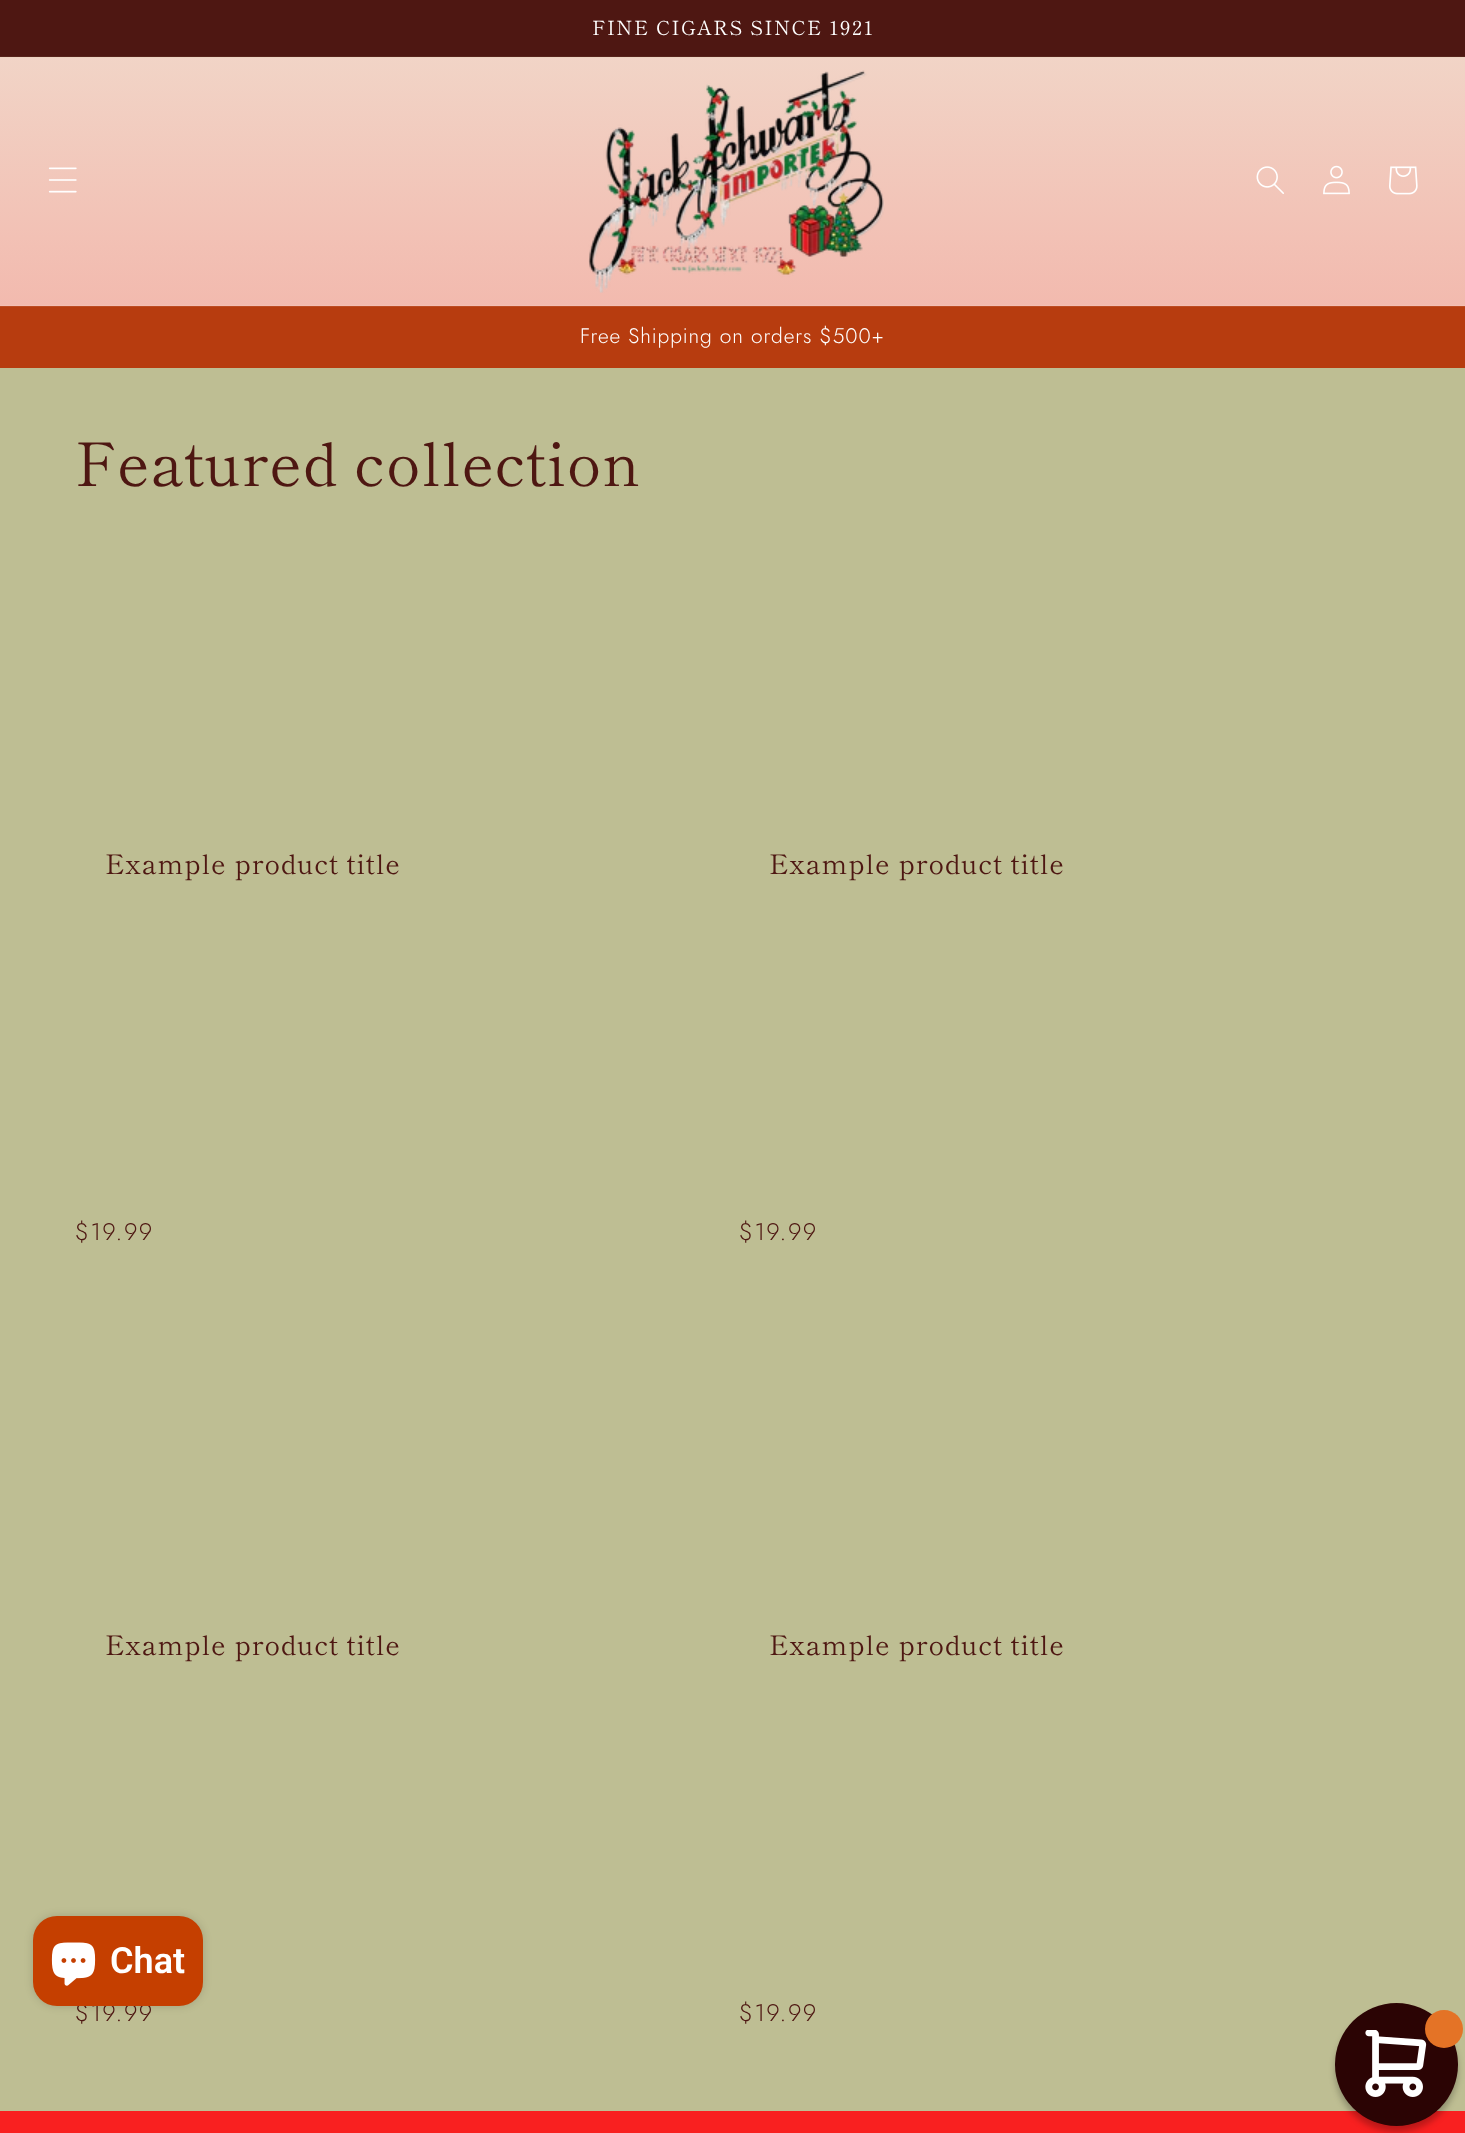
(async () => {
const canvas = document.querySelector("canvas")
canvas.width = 1465
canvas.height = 2133
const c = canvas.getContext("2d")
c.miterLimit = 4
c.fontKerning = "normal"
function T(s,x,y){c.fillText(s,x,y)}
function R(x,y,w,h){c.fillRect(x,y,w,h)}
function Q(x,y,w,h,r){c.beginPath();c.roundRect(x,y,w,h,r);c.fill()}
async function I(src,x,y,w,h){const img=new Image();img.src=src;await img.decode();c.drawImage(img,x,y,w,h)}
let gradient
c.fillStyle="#bebe93"
R(0,0,1465,2133)
c.fillStyle="#4e1712"
R(0,0,1465,56)
c.fillStyle="#57241c"
R(0,56,1465,1)
c.letterSpacing="1.5px"
c.font="19.5px Shippori Mincho"
c.fillStyle="#fff"
T("FINE CIGARS SINCE 1921",592,35)
gradient = c.createLinearGradient(733,0,733,2133)
gradient.addColorStop(0,"#f1dacc")
gradient.addColorStop(.83,"#f92020")
c.fillStyle = gradient
R(0,58,1465,247)
gradient = c.createLinearGradient(733,0,733,2133)
gradient.addColorStop(0,"#edd8c7")
gradient.addColorStop(.83,"#f42d29")
c.fillStyle = gradient
R(0,57,1465,1)
gradient = c.createLinearGradient(733,0,733,2133)
gradient.addColorStop(0,"#f2ddd0")
gradient.addColorStop(.83,"#f93232")
c.fillStyle = gradient
R(0,305,1465,1)
await I("1.png",48,167,29,26)
await I("2.png",588,70,297,223)
await I("3.png",1256,166,28,28)
await I("4.png",1323,165,27,30)
await I("5.png",1389,166,29,29)
c.fillStyle="#b73c0f"
R(0,307,1465,61)
c.fillStyle="#bd4c22"
R(0,306,1465,1)
c.letterSpacing="0.9px"
c.font="300 21px Jost"
c.fillStyle="#fff"
T("Free Shipping on orders $500+",580,343)
c.font="60px Shippori Mincho"
c.fillStyle="#4e1712"
T("Featured collection",75,486)
c.font="27px Shippori Mincho"
T("Example product title",105,874)
c.letterSpacing="1.5px"
c.font="300 24px Jost"
T("$19.99",75,1240)
c.letterSpacing="0.9px"
c.font="27px Shippori Mincho"
T("Example product title",769,874)
c.letterSpacing="1.5px"
c.font="300 24px Jost"
T("$19.99",739,1240)
c.letterSpacing="0.9px"
c.font="27px Shippori Mincho"
T("Example product title",105,1655)
c.letterSpacing="1.5px"
c.font="300 24px Jost"
T("$19.99",75,2021)
c.letterSpacing="0.9px"
c.font="27px Shippori Mincho"
T("Example product title",769,1655)
c.letterSpacing="1.5px"
c.font="300 24px Jost"
T("$19.99",739,2021)
c.fillStyle="#00000026"
c.filter="blur(4px)"
c.beginPath()
c.roundRect(33,1916,170,90,24)
c.fill()
c.filter="none"
c.fillStyle="#c53f00"
Q(33,1916,170,90,24)
await I("6.png",51,1942,45,44)
c.letterSpacing="0px"
c.font="600 36px Roboto"
c.fillStyle="#fff"
T("Chat",110,1973)
gradient = c.createLinearGradient(733,0,733,2133)
gradient.addColorStop(0,"#f1dacc")
gradient.addColorStop(.83,"#f92020")
c.fillStyle = gradient
R(0,2111,1465,22)
c.fillStyle="#00000040"
c.filter="blur(3px)"
c.beginPath()
c.roundRect(1335,2009,123,123,61.5)
c.fill()
c.filter="none"
c.fillStyle="#2b0404"
c.beginPath()
c.arc(1396.5,2064.5,61.5,0,7)
c.fill()
c.fillStyle="#e47326"
c.beginPath()
c.arc(1444,2029,19,0,7)
c.fill()
await I("7.png",1365,2030,62,67)
})()
